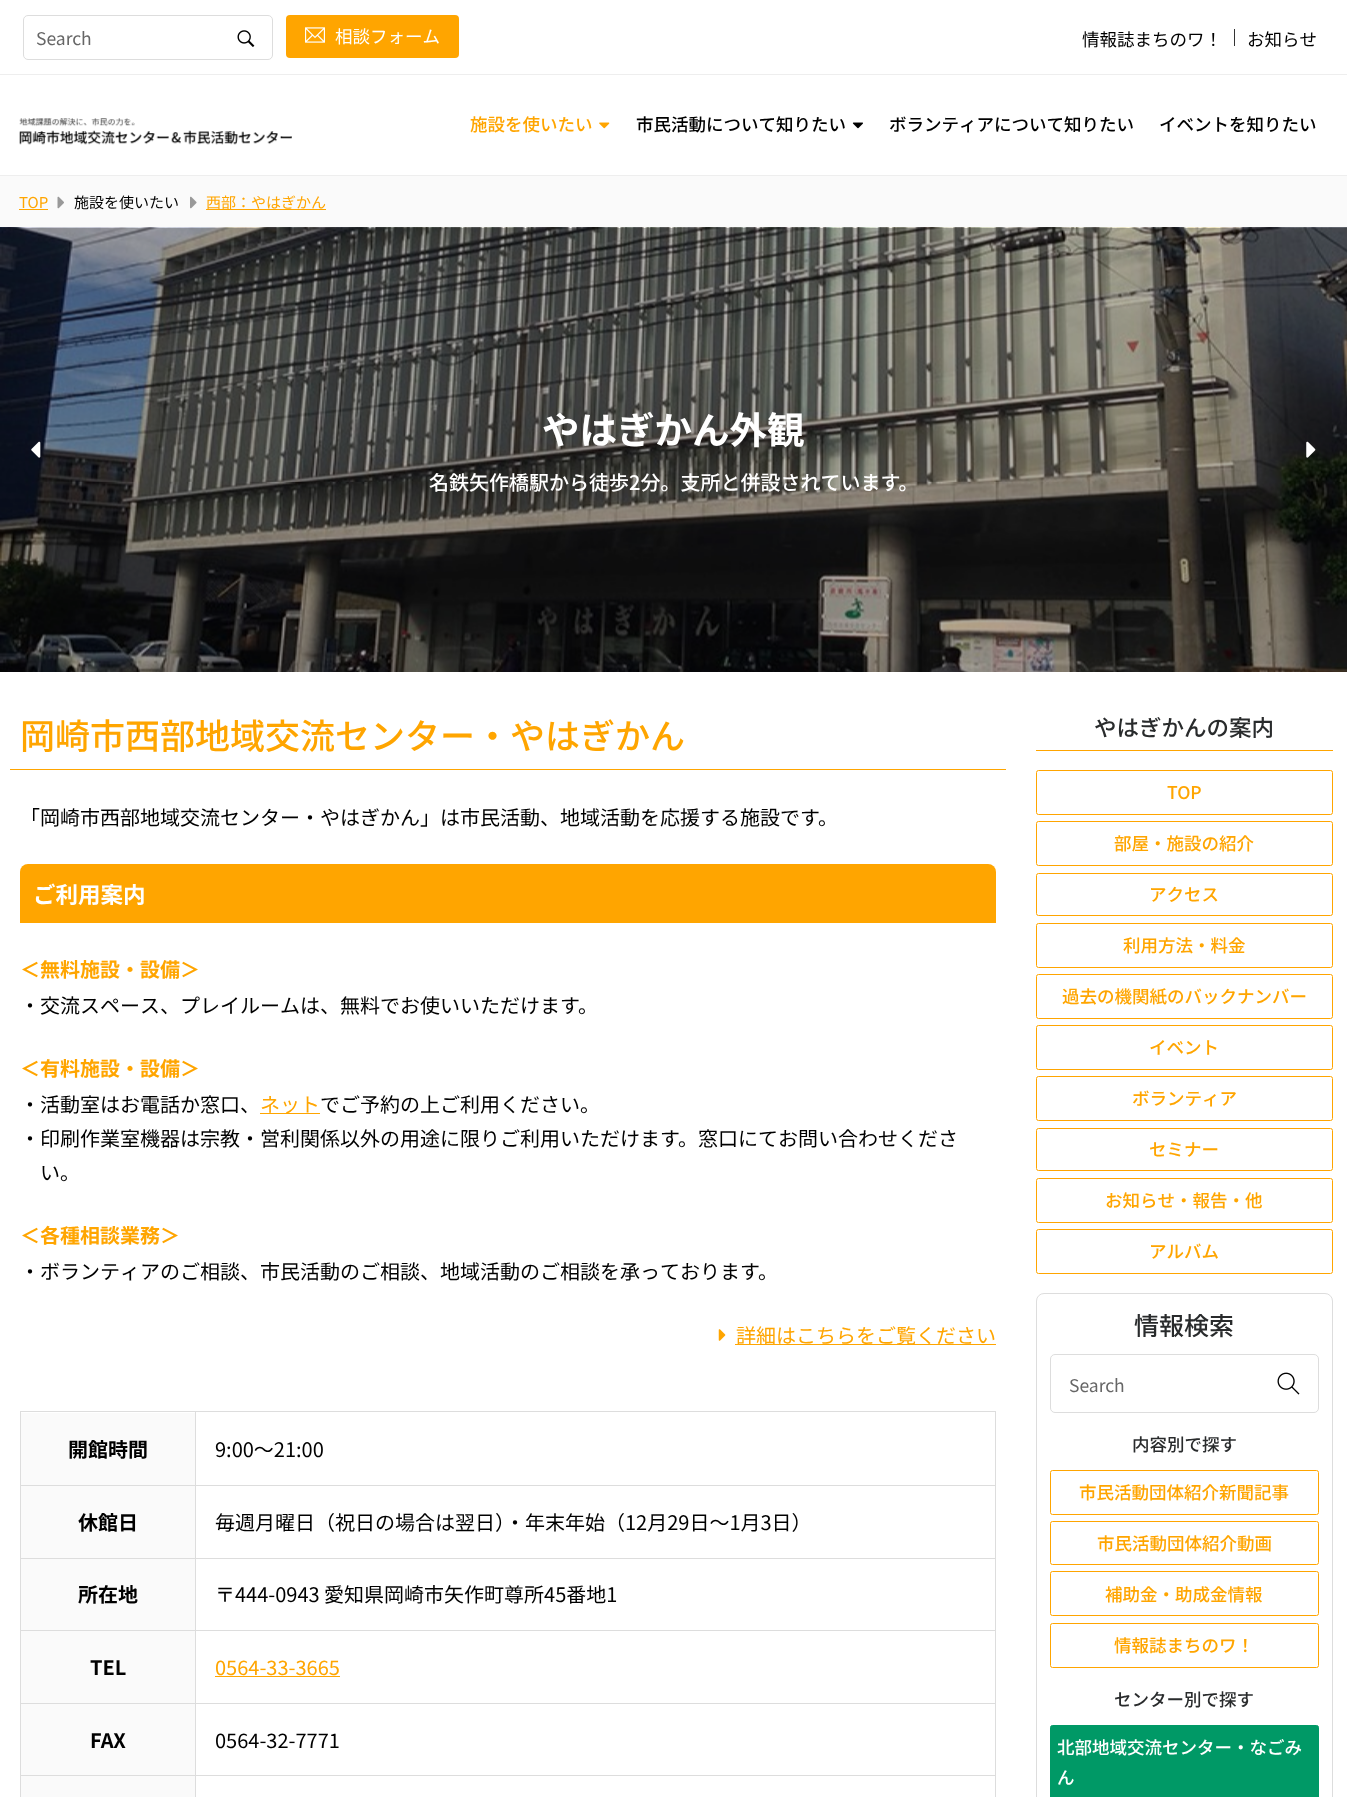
(async () => {
const canvas = document.querySelector("canvas")
canvas.width = 1347
canvas.height = 1797
const c = canvas.getContext("2d")
c.miterLimit = 4
c.fontKerning = "normal"
function T(s,x,y){c.fillText(s,x,y)}
function R(x,y,w,h){c.fillRect(x,y,w,h)}
function Q(x,y,w,h,r){c.beginPath();c.roundRect(x,y,w,h,r);c.fill()}
async function I(src,x,y,w,h){const img=new Image();img.src=src;await img.decode();c.drawImage(img,x,y,w,h)}
c.fillStyle="#fff"
R(0,0,1347,1797)
c.fillStyle="#eee"
R(0,74,1347,1)
c.beginPath()
c.roundRect(23.5,15.5,249,44,4.5)
c.strokeStyle="#ddd"
c.stroke()
c.font="17.5px Noto Sans JP"
c.fillStyle="#666"
T("Search",36,45)
await I("1.png",237,30,18,17)
c.fillStyle="#ffa500"
Q(286,15,173,43,4)
await I("2.png",305,27,20,16)
c.fillStyle="#fff"
T("相談フォーム",335,43)
c.fillStyle="#000"
T("情報誌まちのワ！",1082,46)
c.fillStyle="#333"
R(1234,29,1,17)
c.fillStyle="#000"
T("お知らせ",1247,46)
await I("3.png",19,118,273,27)
c.font="500 17.5px Noto Sans JP"
c.fillStyle="#ffa500"
T("施設を使いたい",470,131)
await I("4.png",599,122,11,7)
c.fillStyle="#000"
T("市民活動について知りたい",636,131)
await I("5.png",852,122,11,7)
T("ボランティアについて知りたい",889,131)
T("イベントを知りたい",1159,131)
c.fillStyle="#fafafa"
R(0,176,1347,51)
c.fillStyle="#eee"
R(0,175,1347,1)
c.font="15px Noto Sans JP"
c.fillStyle="#ffa500"
T("TOP",19,208)
R(19,209,29,1)
await I("6.png",57,196,7,13)
c.fillStyle="#000"
T("施設を使いたい",74,208)
await I("7.png",190,196,7,13)
c.fillStyle="#ffa500"
R(206,209,120,1)
T("西部：やはぎかん",206,208)
await I("9.png",0,227,1347,445)
await I("8.png",31,441,10,17)
c.font="bold 37.5px Noto Sans JP"
c.fillStyle="#fff"
T("やはぎかん外観",542,444)
c.font="500 20px Noto Sans JP"
T("名鉄矢作橋駅から徒歩2分。支所と併設されています。",429,490)
await I("10.png",1306,441,10,17)
c.fillStyle="#ffa500"
R(10,769,996,1)
c.font="500 35px Noto Sans JP"
T("岡崎市西部地域交流センター・やはぎかん",20,749)
c.font="20px Noto Sans JP"
c.fillStyle="#000"
T("「岡崎市西部地域交流センター・やはぎかん」は市民活動、地域活動を応援する施設です。",20,825)
c.fillStyle="#ffa500"
c.beginPath()
c.roundRect(20,864,976,59,[8,8,0,0])
c.fill()
c.font="bold 22.5px Noto Sans JP"
c.fillStyle="#fff"
T("ご利用案内",33,903)
c.font="bold 20px Noto Sans JP"
c.fillStyle="#ffa500"
T("＜無料施設・設備＞",20,977)
c.font="20px Noto Sans JP"
c.fillStyle="#000"
T("・交流スペース、プレイルームは、無料でお使いいただけます。",20,1013)
c.font="bold 20px Noto Sans JP"
c.fillStyle="#ffa500"
T("＜有料施設・設備＞",20,1076)
c.font="20px Noto Sans JP"
c.fillStyle="#000"
T("・活動室はお電話か窓口、",20,1112)
c.fillStyle="#ffa500"
R(260,1113,60,1)
T("ネット",260,1112)
c.fillStyle="#000"
T("でご予約の上ご利用ください。",320,1112)
T("・印刷作業室機器は宗教・営利関係以外の用途に限りご利用いただけます。窓口にてお問い合わせくださ",20,1146)
T("い。",40,1180)
c.font="bold 20px Noto Sans JP"
c.fillStyle="#ffa500"
T("＜各種相談業務＞",20,1243)
c.font="20px Noto Sans JP"
c.fillStyle="#000"
T("・ボランティアのご相談、市民活動のご相談、地域活動のご相談を承っております。",20,1279)
await I("11.png",718,1329,8,12)
c.fillStyle="#ffa500"
R(735,1344,261,1)
T("詳細はこちらをご覧ください",736,1343)
c.fillStyle="#fafafa"
R(21,1413,174,72)
c.fillStyle="#ddd"
R(195,1411,801,1)
R(195,1485,801,1)
R(195,1558,801,1)
R(195,1630,801,1)
R(195,1703,801,1)
R(195,1775,801,1)
R(195,1775,1,22)
R(20,1775,176,1)
R(195,1703,1,73)
R(20,1703,176,1)
R(195,1630,1,74)
R(20,1630,176,1)
R(195,1558,1,73)
R(20,1558,176,1)
R(195,1485,1,74)
R(20,1485,176,1)
R(195,1411,1,75)
R(20,1411,176,1)
R(20,1775,1,22)
R(20,1703,1,73)
R(20,1630,1,74)
R(20,1558,1,73)
R(20,1485,1,74)
R(20,1411,1,75)
c.font="bold 20px Noto Sans JP"
c.fillStyle="#000"
T("開館時間",68,1457)
c.fillStyle="#ddd"
R(995,1775,1,22)
R(995,1703,1,73)
R(995,1630,1,74)
R(995,1558,1,73)
R(995,1485,1,74)
R(995,1411,1,75)
c.font="20px Noto Sans JP"
c.fillStyle="#000"
T("9:00～21:00",215,1457)
c.fillStyle="#fafafa"
R(21,1486,174,72)
c.font="bold 20px Noto Sans JP"
c.fillStyle="#000"
T("休館日",78,1530)
c.font="20px Noto Sans JP"
T("毎週月曜日（祝日の場合は翌日）・年末年始（12月29日～1月3日）",215,1530)
c.fillStyle="#fafafa"
R(21,1559,174,71)
c.font="bold 20px Noto Sans JP"
c.fillStyle="#000"
T("所在地",78,1602)
c.font="20px Noto Sans JP"
T("〒444-0943 愛知県岡崎市矢作町尊所45番地1",215,1602)
c.fillStyle="#fafafa"
R(21,1631,174,72)
c.font="bold 20px Noto Sans JP"
c.fillStyle="#000"
T("TEL",90,1675)
c.font="20px Noto Sans JP"
c.fillStyle="#ffa500"
T("0564-33-3665",215,1675)
R(215,1676,125,1)
c.fillStyle="#fafafa"
R(21,1704,174,71)
c.font="bold 20px Noto Sans JP"
c.fillStyle="#000"
T("FAX",90,1748)
c.font="20px Noto Sans JP"
T("0564-32-7771",215,1748)
c.fillStyle="#fafafa"
R(21,1776,174,21)
c.fillStyle="#ffa500"
R(1036,750,297,1)
c.font="500 22.5px Noto Sans JP"
c.fillStyle="#292b2c"
T("やはぎかんの案内",1094,736)
c.beginPath()
c.roundRect(1036.5,770.5,296,44,2)
c.strokeStyle="#ffa500"
c.stroke()
c.font="500 17.5px Noto Sans JP"
c.fillStyle="#ffa500"
T("TOP",1167,799)
c.beginPath()
c.roundRect(1036.5,821.5,296,44,2)
c.stroke()
T("部屋・施設の紹介",1114,850)
c.beginPath()
c.roundRect(1036.5,873.5,296,42,2)
c.stroke()
T("アクセス",1149,901)
c.beginPath()
c.roundRect(1036.5,923.5,296,44,2)
c.stroke()
T("利用方法・料金",1123,952)
c.beginPath()
c.roundRect(1036.5,974.5,296,44,2)
c.stroke()
T("過去の機関紙のバックナンバー",1062,1003)
c.beginPath()
c.roundRect(1036.5,1025.5,296,44,2)
c.stroke()
T("イベント",1149,1054)
c.beginPath()
c.roundRect(1036.5,1076.5,296,44,2)
c.stroke()
T("ボランティア",1132,1105)
c.beginPath()
c.roundRect(1036.5,1128.5,296,42,2)
c.stroke()
T("セミナー",1149,1156)
c.beginPath()
c.roundRect(1036.5,1178.5,296,44,2)
c.stroke()
T("お知らせ・報告・他",1105,1207)
c.beginPath()
c.roundRect(1036.5,1229.5,296,44,2)
c.stroke()
T("アルバム",1149,1258)
c.beginPath()
c.roundRect(1036.5,1293.5,296,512,7.5)
c.strokeStyle="#ddd"
c.stroke()
c.font="500 25px Noto Sans JP"
c.fillStyle="#292b2c"
T("情報検索",1134,1335)
c.beginPath()
c.roundRect(1050.5,1354.5,268,58,4.5)
c.stroke()
c.font="17.5px Noto Sans JP"
c.fillStyle="#666"
T("Search",1069,1392)
await I("12.png",1277,1372,23,23)
c.font="500 17.5px Noto Sans JP"
c.fillStyle="#292b2c"
T("内容別で探す",1132,1451)
c.beginPath()
c.roundRect(1050.5,1470.5,268,44,2)
c.strokeStyle="#ffa500"
c.stroke()
c.fillStyle="#ffa500"
T("市民活動団体紹介新聞記事",1079,1499)
c.beginPath()
c.roundRect(1050.5,1521.5,268,43,2)
c.stroke()
T("市民活動団体紹介動画",1097,1550)
c.beginPath()
c.roundRect(1050.5,1571.5,268,44,2)
c.stroke()
T("補助金・助成金情報",1105,1601)
c.beginPath()
c.roundRect(1050.5,1623.5,268,44,2)
c.stroke()
T("情報誌まちのワ！",1114,1652)
c.fillStyle="#292b2c"
T("センター別で探す",1114,1706)
c.fillStyle="#096"
c.beginPath()
c.roundRect(1050.5,1725.5,268,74,2)
c.fill()
c.strokeStyle="#096"
c.stroke()
c.fillStyle="#fff"
T("北部地域交流センター・なごみ",1057,1754)
T("ん",1057,1784)
})()
